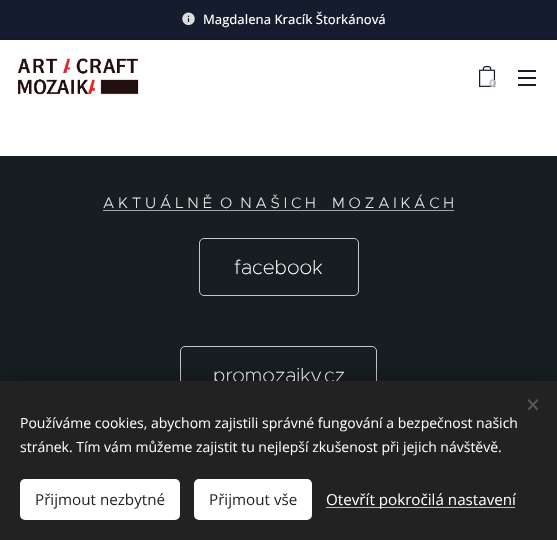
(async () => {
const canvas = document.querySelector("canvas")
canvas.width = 557
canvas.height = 540
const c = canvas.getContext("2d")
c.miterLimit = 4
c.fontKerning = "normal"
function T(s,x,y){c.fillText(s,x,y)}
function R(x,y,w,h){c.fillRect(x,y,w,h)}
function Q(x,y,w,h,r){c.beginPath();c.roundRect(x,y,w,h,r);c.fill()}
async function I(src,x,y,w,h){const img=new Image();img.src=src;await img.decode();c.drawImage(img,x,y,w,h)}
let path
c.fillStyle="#fff"
R(0,0,557,540)
c.fillStyle="#141c2d"
R(0,0,557,39)
await I("1.png",182,12,13,14)
c.font="500 13px Open Sans"
c.fillStyle="#fff"
T("Magdalena Kracík Štorkánová",203,24)
c.fillStyle="#111826"
R(0,39,557,1)
await I("2.png",17,58,122,37)
await I("3.png",479,65,17,22)
c.font="bold 11px Montserrat"
c.fillStyle="#bdbfc4"
T("0",489,87)
c.fillStyle="#141c2d"
R(518,77,18,2)
R(518,70,18,2)
R(518,84,18,2)
c.fillStyle="#171e22"
R(0,156,557,225)
c.letterSpacing="-0.28px"
c.font="300 15.2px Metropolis"
c.fillStyle="#e8e9e9"
T("A K T U Á L N Ě  O  N A Š I C H    M O Z A I K Á C H",103,208)
c.fillStyle="#a2a5a7"
R(103,210,351,1)
c.beginPath()
c.roundRect(199.5,238.5,159,57,4.5)
c.strokeStyle="#c5c7c8"
c.stroke()
c.letterSpacing="0px"
c.font="200 20px Metropolis"
c.fillStyle="#fff"
T("facebook",234,274)
c.beginPath()
c.roundRect(180.5,346.5,196,57,4.5)
c.stroke()
T("promozaiky.cz",213,382)
c.fillStyle="#00000054"
c.filter="blur(12.5px)"
c.beginPath()
c.rect(0,381,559,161)
c.fill()
c.filter="none"
c.fillStyle="#222"
R(0,381,557,159)
c.fillStyle="#555"
path = new Path2D("M527.5 409l9.5-10l1.5 1.5l-9.5 10z")
c.fill(path)
path = new Path2D("M529 399l9.5 10l-1.5 1.5l-9.5-10z")
c.fill(path)
c.font="14px Open Sans"
c.fillStyle="#fff"
T("Používáme cookies, abychom zajistili správné fungování a bezpečnost našich",20,428)
T("stránek. Tím vám můžeme zajistit tu nejlepší zkušenost při jejich návštěvě.",20,452)
Q(20,479,160,41,5)
c.font="15.2px Open Sans"
c.fillStyle="#222"
T("Přijmout nezbytné",35,505)
c.fillStyle="#fff"
Q(194,479,118,41,5)
c.fillStyle="#222"
T("Přijmout vše",209,505)
c.fillStyle="#bdbdbd"
R(326,507,189,1)
c.fillStyle="#fff"
T("Otevřít pokročilá nastavení",326,505)
})()
